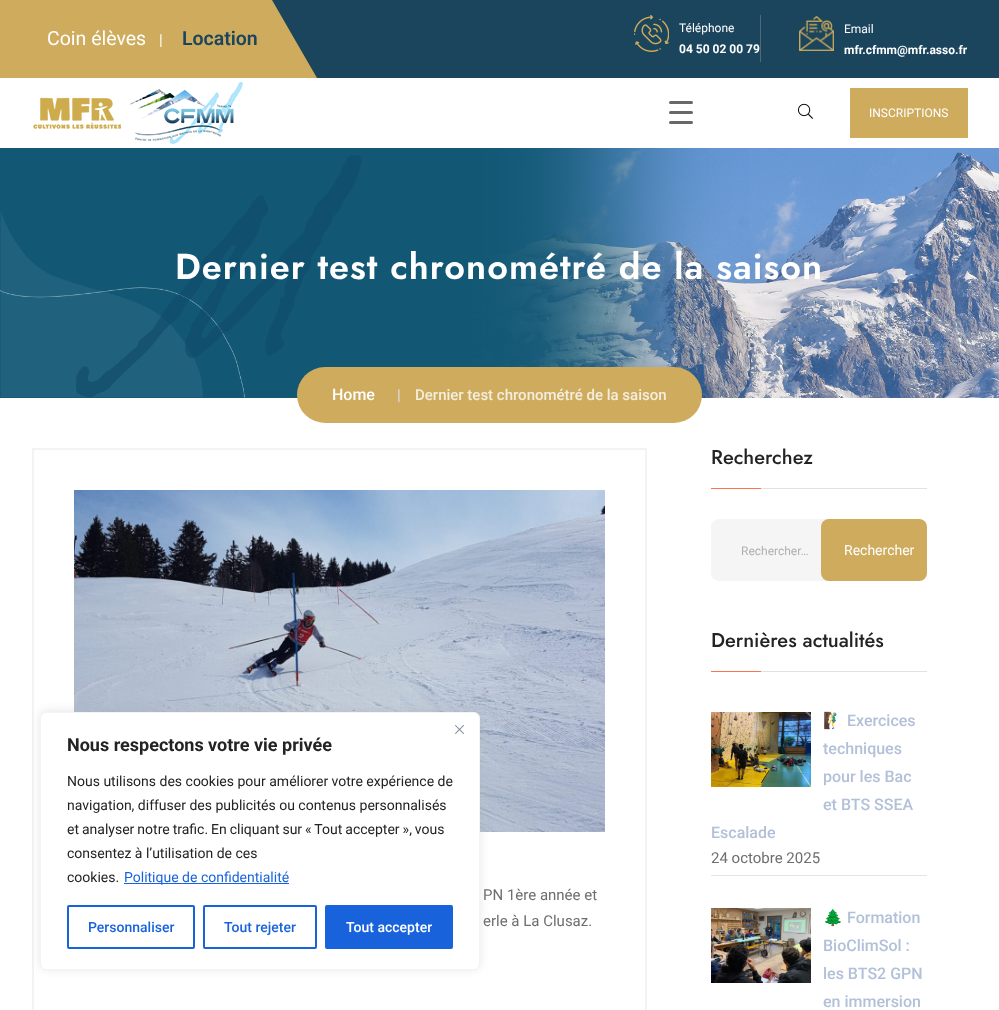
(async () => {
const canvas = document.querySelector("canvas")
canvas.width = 999
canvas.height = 1010
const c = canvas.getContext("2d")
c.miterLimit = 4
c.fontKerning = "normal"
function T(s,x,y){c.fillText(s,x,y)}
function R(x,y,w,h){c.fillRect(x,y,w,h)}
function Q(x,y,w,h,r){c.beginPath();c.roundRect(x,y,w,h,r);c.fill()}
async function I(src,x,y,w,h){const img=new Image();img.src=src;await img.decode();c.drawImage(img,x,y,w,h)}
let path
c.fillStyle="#fff"
R(0,0,999,1010)
c.fillStyle="#1a455c"
R(272,0,727,78)
c.fillStyle="#ceab5d"
path = new Path2D("M-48 0h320l45 78h-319z")
c.fill(path)
c.font="19.5px Roboto"
c.fillStyle="#fff"
T("Coin élèves",47,45)
c.font="15px Roboto"
T("|",159,45)
c.font="600 19.5px Roboto"
c.fillStyle="#1a455c"
T("Location",182,45)
c.fillStyle="#4c6c7d"
R(760,15,1,47)
await I("1.png",634,15,35,37)
c.font="12px Roboto"
c.fillStyle="#fff"
T("Téléphone",679,32)
c.font="bold 12px Roboto"
T("04 50 02 00 79",679,53)
await I("2.png",799,16,35,35)
c.font="12px Roboto"
T("Email",844,33)
c.font="bold 12px Roboto"
T("mfr.cfmm@mfr.asso.fr",844,54)
await I("3.png",33,82,210,62)
c.fillStyle="#686868"
Q(669,111,24,3,1.5)
Q(669,101,24,3,1.5)
Q(669,121,24,3,1.5)
await I("4.png",798,103,15,16)
c.fillStyle="#ceab5d"
R(850,88,118,50)
c.font="12px Roboto"
c.fillStyle="#fff"
T("INSCRIPTIONS",869,117)
await I("5.png",0,148,999,250)
c.letterSpacing="1px"
c.font="600 36px Jost"
T("Dernier test chronométré de la saison",175,279)
c.fillStyle="#ceab5d"
Q(297,367,405,56,28)
c.letterSpacing="0px"
c.font="500 16px Roboto"
c.fillStyle="#fff"
T("Home",332,400)
c.font="500 15px Roboto"
c.fillStyle="#ddd"
T("|",397,400)
c.fillStyle="#f5eedf"
T("Dernier test chronométré de la saison",415,400)
c.strokeStyle="#f3f3f3"
c.lineWidth=2
c.strokeRect(33,449,613,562)
await I("6.png",74,490,531,342)
c.font="15px Roboto"
c.fillStyle="#6e6e6e"
T("PN 1ère année et",483,900)
T("erle à La Clusaz.",483,926)
c.fillStyle="#e1e1e1"
R(761,488,166,1)
c.font="500 20px Jost"
c.fillStyle="#232323"
T("Recherchez",711,464)
c.fillStyle="#ff7350"
R(711,488,50,1)
c.fillStyle="#f5f5f5"
Q(711,519,216,62,8)
c.font="12px Roboto"
c.fillStyle="#b0b0b0"
T("Rechercher…",741,555)
c.fillStyle="#ceab5d"
Q(821,519,106,62,8)
c.font="14px Roboto"
c.fillStyle="#fff"
T("Rechercher",844,555)
c.fillStyle="#e1e1e1"
R(761,671,166,1)
c.font="500 20px Jost"
c.fillStyle="#232323"
T("Dernières actualités",711,647)
c.fillStyle="#ff7350"
R(711,671,50,1)
c.fillStyle="#e4e4e4"
R(711,875,216,1)
await I("7.png",711,712,100,75)
c.font="16px Noto Color Emoji"
c.fillStyle="#b2c0d8"
T("🧗‍♂️",823,726)
c.font="500 16px Roboto"
T("Exercices",847,726)
T("techniques",823,754)
T("pour les Bac",823,782)
T("et BTS SSEA",823,810)
T("Escalade",711,838)
c.font="15px Roboto"
c.fillStyle="#6e6e6e"
T("24 octobre 2025",711,863)
await I("8.png",711,908,100,75)
c.font="16px Noto Color Emoji"
c.fillStyle="#b2c0d8"
T("🌲",823,923)
c.font="500 16px Roboto"
T("Formation",847,923)
T("BioClimSol :",823,951)
T("les BTS2 GPN",823,979)
T("en immersion",823,1007)
c.fillStyle="#acabab4d"
c.filter="blur(5px)"
c.beginPath()
c.roundRect(40,711,440,258,6)
c.fill()
c.filter="none"
c.fillStyle="#fff"
c.beginPath()
c.roundRect(40.5,712.5,439,257,5.5)
c.fill()
c.strokeStyle="#f4f4f4"
c.lineWidth=1
c.stroke()
await I("9.png",455,725,9,9)
c.font="bold 18px Roboto"
c.fillStyle="#232323"
T("Nous respectons votre vie privée",67,751)
c.font="14px Roboto"
T("Nous utilisons des cookies pour améliorer votre expérience de",67,786)
T("navigation, diffuser des publicités ou contenus personnalisés",67,810)
c.wordSpacing="-0.5px"
T("et analyser notre trafic. En cliquant sur « Tout accepter », vous",67,834)
c.wordSpacing="0px"
T("consentez à l’utilisation de ces",67,858)
T("cookies.",67,882)
c.fillStyle="#1863dc"
R(124,883,165,1)
T("Politique de confidentialité",124,882)
c.beginPath()
c.roundRect(68,906,126,42,1)
c.strokeStyle="#1863dc"
c.lineWidth=2
c.stroke()
c.font="500 14px Roboto"
T("Personnaliser",88,932)
c.beginPath()
c.roundRect(204,906,112,42,1)
c.stroke()
T("Tout rejeter",224,932)
c.beginPath()
c.roundRect(326,906,126,42,1)
c.fill()
c.stroke()
c.fillStyle="#fff"
T("Tout accepter",346,932)
})()
